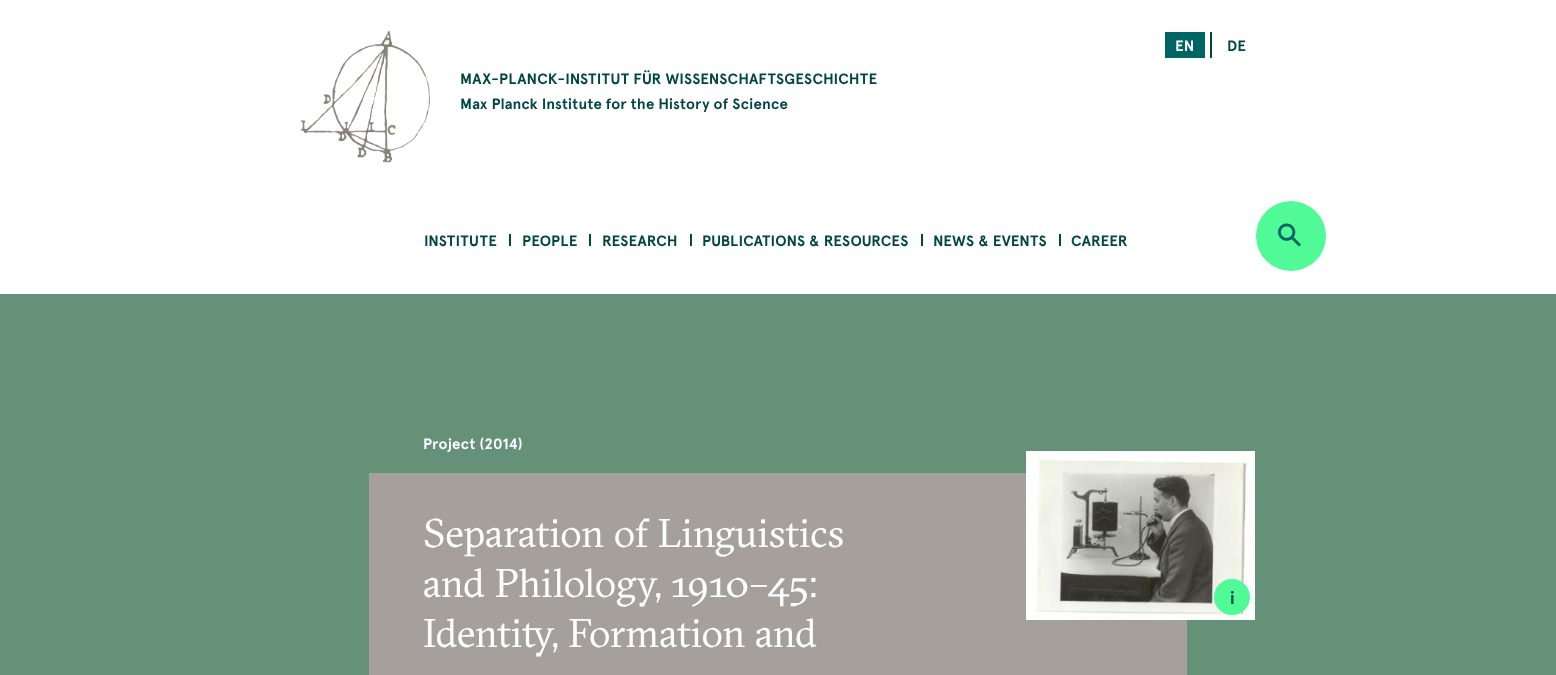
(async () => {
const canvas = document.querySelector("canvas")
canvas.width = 1556
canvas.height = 675
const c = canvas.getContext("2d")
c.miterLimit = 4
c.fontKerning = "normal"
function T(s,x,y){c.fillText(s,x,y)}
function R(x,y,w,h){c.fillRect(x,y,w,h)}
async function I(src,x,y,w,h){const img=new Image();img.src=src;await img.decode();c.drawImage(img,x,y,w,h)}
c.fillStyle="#fff"
R(0,0,1556,675)
c.fillStyle="#004646"
R(1210,32,2,26)
c.fillStyle="#006464"
R(1165,32,40,26)
c.letterSpacing="0.2px"
c.font="bold 15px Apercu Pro"
c.fillStyle="#fff"
T("EN",1175,51)
c.fillStyle="#004646"
T("DE",1227,51)
await I("1.png",301,30,129,133)
T("MAX-PLANCK-INSTITUT FÜR WISSENSCHAFTSGESCHICHTE",460,84)
T("Max Planck Institute for the History of Science",460,109)
T("INSTITUTE",424,246)
R(509,234,2,12)
T("PEOPLE",522,246)
R(589,234,2,12)
T("RESEARCH",602,246)
R(690,234,2,12)
T("PUBLICATIONS & RESOURCES",702,246)
R(921,234,2,12)
T("NEWS & EVENTS",933,246)
R(1059,234,2,12)
T("CAREER",1071,246)
c.fillStyle="#50fa96"
c.beginPath()
c.arc(1291,236,35,0,7)
c.fill()
await I("2.png",1278,223,23,24)
c.fillStyle="#649178"
R(0,294,1556,381)
c.fillStyle="#a5a09b"
R(369,473,818,202)
c.fillStyle="#fff"
T("Project (2014)",423,449)
c.letterSpacing="0px"
c.font="40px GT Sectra"
T("Separation of Linguistics",423,547)
T("and Philology, 1910–45:",423,597)
T("Identity, Formation and",423,647)
await I("3.png",1026,451,229,169)
c.fillStyle="#50fa96"
c.beginPath()
c.arc(1232,597,18,0,7)
c.fill()
c.letterSpacing="1px"
c.font="bold 18px Apercu Pro"
c.fillStyle="#004646"
T("i",1230,604)
})()
